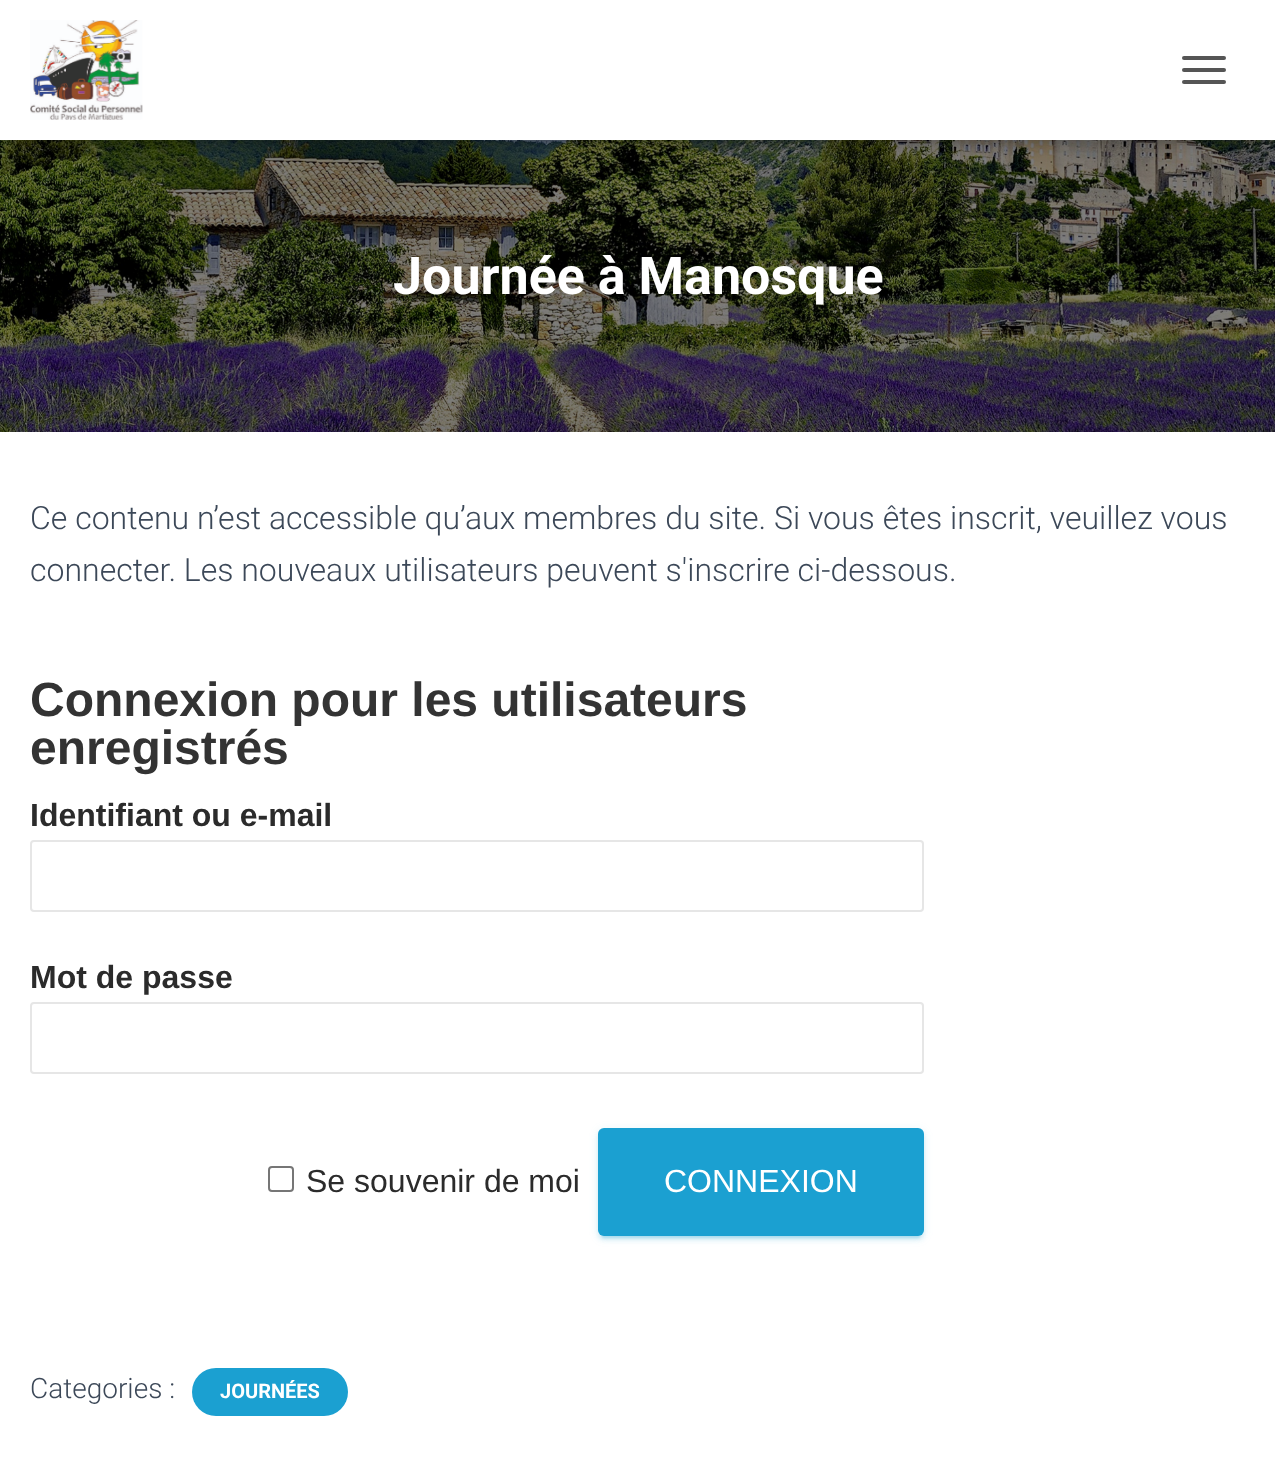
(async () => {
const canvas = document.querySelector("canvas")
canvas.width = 1275
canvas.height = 1470
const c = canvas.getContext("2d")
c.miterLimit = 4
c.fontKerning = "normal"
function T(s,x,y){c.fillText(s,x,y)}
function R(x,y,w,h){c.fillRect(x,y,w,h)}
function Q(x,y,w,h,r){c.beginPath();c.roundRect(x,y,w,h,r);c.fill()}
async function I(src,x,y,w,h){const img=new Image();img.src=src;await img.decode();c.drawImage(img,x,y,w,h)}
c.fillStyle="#fff"
R(0,0,1275,1470)
await I("2.png",0,140,1275,292)
c.fillStyle="#0000001a"
c.filter="blur(5px)"
c.beginPath()
c.rect(4,12,1268,132)
c.fill()
c.filter="none"
c.fillStyle="#0000001f"
c.filter="blur(10px)"
c.beginPath()
c.rect(0,2,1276,140)
c.fill()
c.filter="none"
c.fillStyle="#0000006b"
c.filter="blur(10px)"
c.beginPath()
c.rect(12,14,1252,116)
c.fill()
c.filter="none"
c.fillStyle="#fff"
R(0,0,1275,140)
await I("1.png",30,20,113,100)
c.fillStyle="#555"
Q(1182,56,44,4,2)
Q(1182,68,44,4,2)
Q(1182,80,44,4,2)
c.font="bold 52px Roboto"
c.fillStyle="#fff"
T("Journée à Manosque",393,294)
c.fillStyle="#0000001f"
c.filter="blur(30px)"
c.beginPath()
c.rect(-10,434,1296,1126)
c.fill()
c.filter="none"
c.fillStyle="#fff"
R(0,432,1275,1038)
c.font="300 32px Roboto"
c.fillStyle="#3c4858"
T("Ce contenu n’est accessible qu’aux membres du site. Si vous êtes inscrit, veuillez vous",30,529)
T("connecter. Les nouveaux utilisateurs peuvent s'inscrire ci-dessous.",30,581)
c.font="bold 48px Liberation Sans"
c.fillStyle="#333"
T("Connexion pour les utilisateurs",30,716)
T("enregistrés",30,764)
c.font="bold 32px Liberation Sans"
c.fillStyle="#2b2b2b"
T("Identifiant ou e-mail",30,826)
c.beginPath()
c.roundRect(31,841,892,70,3)
c.strokeStyle="#e6e6e6"
c.lineWidth=2
c.stroke()
T("Mot de passe",30,988)
c.beginPath()
c.roundRect(31,1003,892,70,3)
c.stroke()
c.beginPath()
c.roundRect(269,1167,24,24,3)
c.strokeStyle="#767676"
c.stroke()
c.font="32px Liberation Sans"
T("Se souvenir de moi",306,1192)
c.fillStyle="#1ba0d11f"
c.filter="blur(5px)"
c.beginPath()
c.roundRect(598,1130,326,108,6)
c.fill()
c.filter="none"
c.fillStyle="#1ba0d133"
c.filter="blur(1px)"
c.beginPath()
c.roundRect(602,1138,318,100,2)
c.fill()
c.filter="none"
c.fillStyle="#1ba0d124"
c.filter="blur(2px)"
c.beginPath()
c.roundRect(598,1132,326,108,6)
c.fill()
c.filter="none"
c.fillStyle="#1ba0d1"
Q(598,1128,326,108,6)
c.fillStyle="#fff"
T("CONNEXION",664,1192)
c.font="300 28px Roboto"
c.fillStyle="#3c4858"
T("Categories :",30,1398)
c.fillStyle="#1ba0d1"
Q(192,1368,156,48,24)
c.font="bold 20px Roboto"
c.fillStyle="#fff"
T("JOURNÉES",220,1398)
})()
